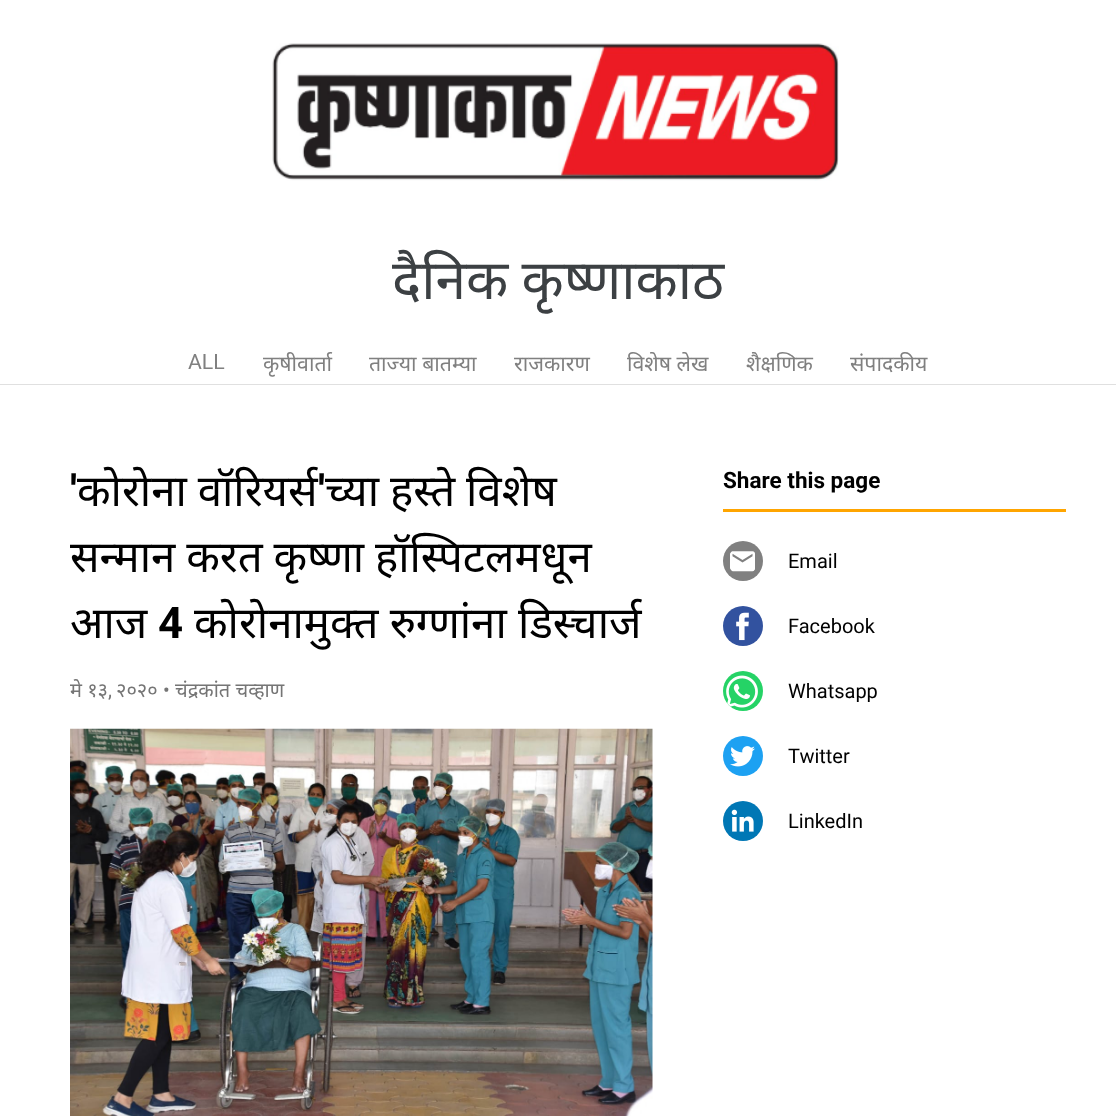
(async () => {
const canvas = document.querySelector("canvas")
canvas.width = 1116
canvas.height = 1116
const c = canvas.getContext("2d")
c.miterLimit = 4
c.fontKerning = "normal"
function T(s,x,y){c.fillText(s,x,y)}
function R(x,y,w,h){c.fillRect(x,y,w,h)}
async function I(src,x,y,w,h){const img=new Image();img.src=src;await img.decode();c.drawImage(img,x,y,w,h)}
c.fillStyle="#fff"
R(0,0,1116,1116)
c.fillStyle="#e0e0e0"
R(0,384,1116,1)
await I("1.png",272,43,567,138)
c.save()
c.beginPath()
c.rect(373,239,371,82)
c.clip()
c.wordSpacing="-1px"
c.font="55px Noto Sans"
c.fillStyle="#3c4043"
T("दैनिक कृष्णाकाठ",392,299)
c.restore()
c.font="21.25px Roboto"
c.fillStyle="#808080"
T("ALL",188,369)
c.font="21.25px Noto Sans"
T("कृषीवार्ता",263,371)
T("ताज्या बातम्या",369,371)
T("राजकारण",514,371)
T("विशेष लेख",627,371)
T("शैक्षणिक",746,371)
T("संपादकीय",850,371)
c.font="bold 43.75px Roboto"
c.fillStyle="#000"
T("'",70,506)
c.wordSpacing="-0.5px"
c.font="43.75px Noto Sans"
T("कोरोना वॉरियर्स",77,506)
T("च्या हस्ते विशेष",325,506)
c.wordSpacing="0px"
c.font="bold 43.75px Roboto"
T("'",318,506)
c.wordSpacing="-0.5px"
c.font="43.75px Noto Sans"
T("सन्मान करत कृष्णा हॉस्पिटलमधून",70,572)
c.wordSpacing="0px"
T("आज",70,638)
c.font="bold 43.75px Roboto"
T("4",158,638)
c.font="43.75px Noto Sans"
T("कोरोनामुक्त रुग्णांना डिस्चार्ज",194,638)
c.save()
c.beginPath()
c.rect(70,678,583,26)
c.clip()
c.font="20px Noto Sans"
c.fillStyle="#757575"
T("मे १३",70,697)
c.restore()
c.font="20px Noto Sans"
c.fillStyle="#757575"
T("२०२०",116,697)
c.font="20px Roboto"
T("•",163,697)
c.font="20px Noto Sans"
T("चंद्रकांत चव्हाण",175,697)
c.font="20px Roboto"
T(",",108,697)
await I("2.png",70,728,583,388)
c.fillStyle="#ffa500"
R(723,509,343,3)
c.font="bold 22.5px Roboto"
c.fillStyle="#000"
T("Share this page",723,488)
c.fillStyle="#808080"
c.beginPath()
c.arc(743,561,20,0,7)
c.fill()
await I("3.png",730,551,25,21)
c.font="20px Roboto"
c.fillStyle="#000"
T("Email",788,568)
c.fillStyle="#32529f"
c.beginPath()
c.arc(743,626,20,0,7)
c.fill()
await I("4.png",736,612,13,29)
c.fillStyle="#000"
T("Facebook",788,633)
c.fillStyle="#25d366"
c.beginPath()
c.arc(743,691,20,0,7)
c.fill()
await I("5.png",726,675,32,33)
c.fillStyle="#000"
T("Whatsapp",788,698)
c.fillStyle="#1da1f2"
c.beginPath()
c.arc(743,756,20,0,7)
c.fill()
await I("6.png",730,746,25,21)
c.fillStyle="#000"
T("Twitter",788,763)
c.fillStyle="#0077b5"
c.beginPath()
c.arc(743,821,20,0,7)
c.fill()
await I("7.png",731,809,23,23)
c.fillStyle="#000"
T("LinkedIn",788,828)
})()
